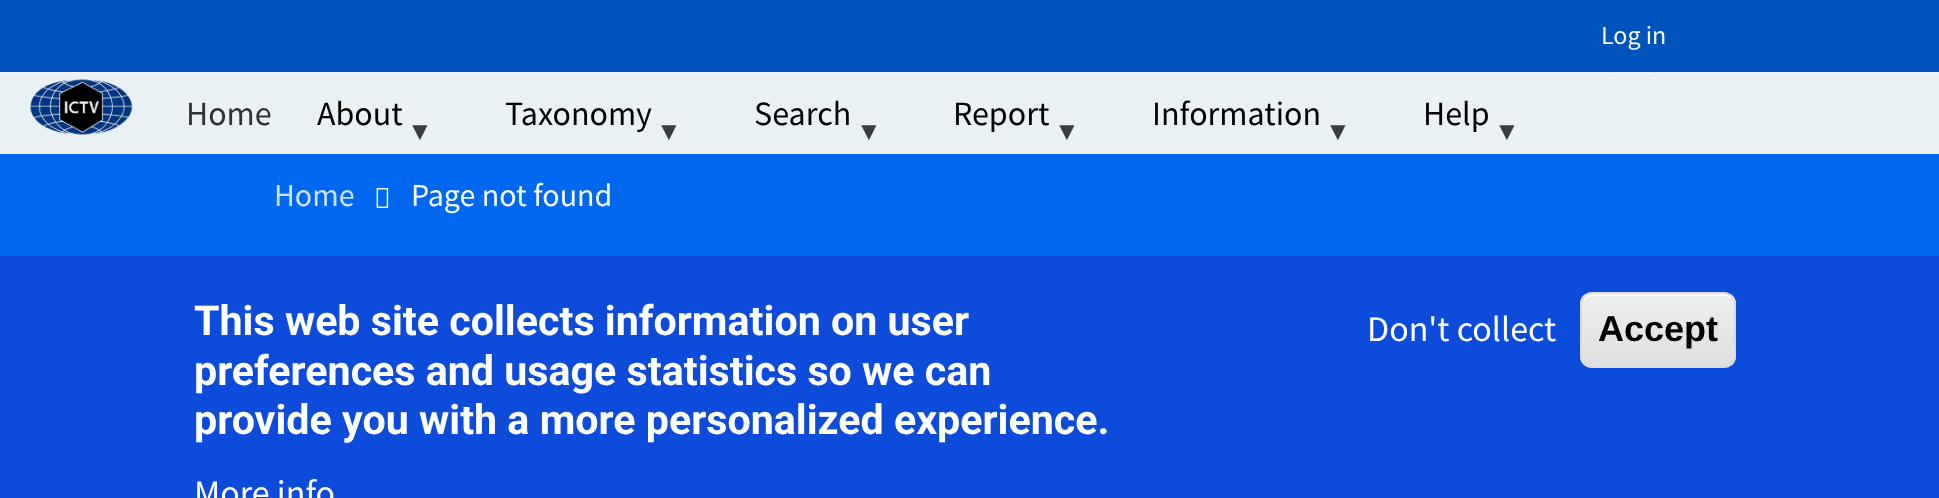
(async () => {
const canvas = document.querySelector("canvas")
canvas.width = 1939
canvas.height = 498
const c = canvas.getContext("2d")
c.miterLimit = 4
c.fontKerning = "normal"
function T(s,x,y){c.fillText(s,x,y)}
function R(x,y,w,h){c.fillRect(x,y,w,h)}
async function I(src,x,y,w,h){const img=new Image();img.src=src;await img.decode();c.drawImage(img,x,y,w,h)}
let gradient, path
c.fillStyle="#0068f0"
R(0,0,1939,498)
c.fillStyle="#0052bd"
R(0,0,1939,72)
c.font="26px Source Sans Pro"
c.fillStyle="#f6f9fc"
T("Log in",1601,44)
c.fillStyle="#eef4f7"
R(0,72,1939,2)
c.fillStyle="#0052bd"
path = new Path2D("M1654.5 72.5l-21.5-21.5l1.5-1.5l21.5 21.5zm-22.5-22.5l1 1l-21 21.5l-1.5-1.5z")
c.fill(path)
c.fillStyle="#eaf1f5"
R(0,74,1939,80)
await I("1.png",30,79,103,56)
c.font="34px Source Sans Pro"
c.fillStyle="#323232"
T("Home",186,125)
c.fillStyle="#000"
T("About",317,125)
c.font="26px Liberation Sans"
c.fillStyle="#3b3c3d"
T("▼",407,140)
c.font="34px Source Sans Pro"
c.fillStyle="#000"
T("Taxonomy",505,125)
c.font="26px Liberation Sans"
c.fillStyle="#3b3c3d"
T("▼",656,140)
c.font="34px Source Sans Pro"
c.fillStyle="#000"
T("Search",754,125)
c.font="26px Liberation Sans"
c.fillStyle="#3b3c3d"
T("▼",856,140)
c.font="34px Source Sans Pro"
c.fillStyle="#000"
T("Report",953,125)
c.font="26px Liberation Sans"
c.fillStyle="#3b3c3d"
T("▼",1054,140)
c.font="34px Source Sans Pro"
c.fillStyle="#000"
T("Information",1152,125)
c.font="26px Liberation Sans"
c.fillStyle="#3b3c3d"
T("▼",1325,140)
c.font="34px Source Sans Pro"
c.fillStyle="#000"
T("Help",1423,125)
c.font="26px Liberation Sans"
c.fillStyle="#3b3c3d"
T("▼",1494,140)
c.font="32px Source Sans Pro"
c.fillStyle="#cce2ff"
T("Home",274,206)
await I("2.png",376,188,13,20)
c.fillStyle="#f6f9fc"
T("Page not found",411,206)
c.fillStyle="#0d4bdb"
R(0,256,1939,242)
c.font="bold 41.2px Roboto"
c.fillStyle="#fff"
T("This web site collects information on user",194,335)
T("preferences and usage statistics so we can",194,385)
T("provide you with a more personalized experience.",194,434)
c.font="36px Source Sans Pro"
T("More info",194,505)
T("Don't collect",1367,341)
c.save()
c.beginPath()
c.roundRect(1580,292,156,76,12)
c.clip()
gradient = c.createLinearGradient(1658,294,1658,366)
gradient.addColorStop(.05,"#ededed")
gradient.addColorStop(1,"#dfdfdf")
c.fillStyle = gradient
R(1580,294,156,72)
c.restore()
path = new Path2D("M1592 296h132c6 0 10 4 10 10c0-17-20-12-32-12h-88c-12 0-32-5-32 12c0-6 4-10 10-10z")
c.fill(path)
c.beginPath()
c.roundRect(1581,293,154,74,11)
c.strokeStyle="#dcdcdc"
c.lineWidth=2
c.stroke()
c.font="bold 36px Liberation Sans"
c.fillStyle="#000"
T("Accept",1598,341)
})()
